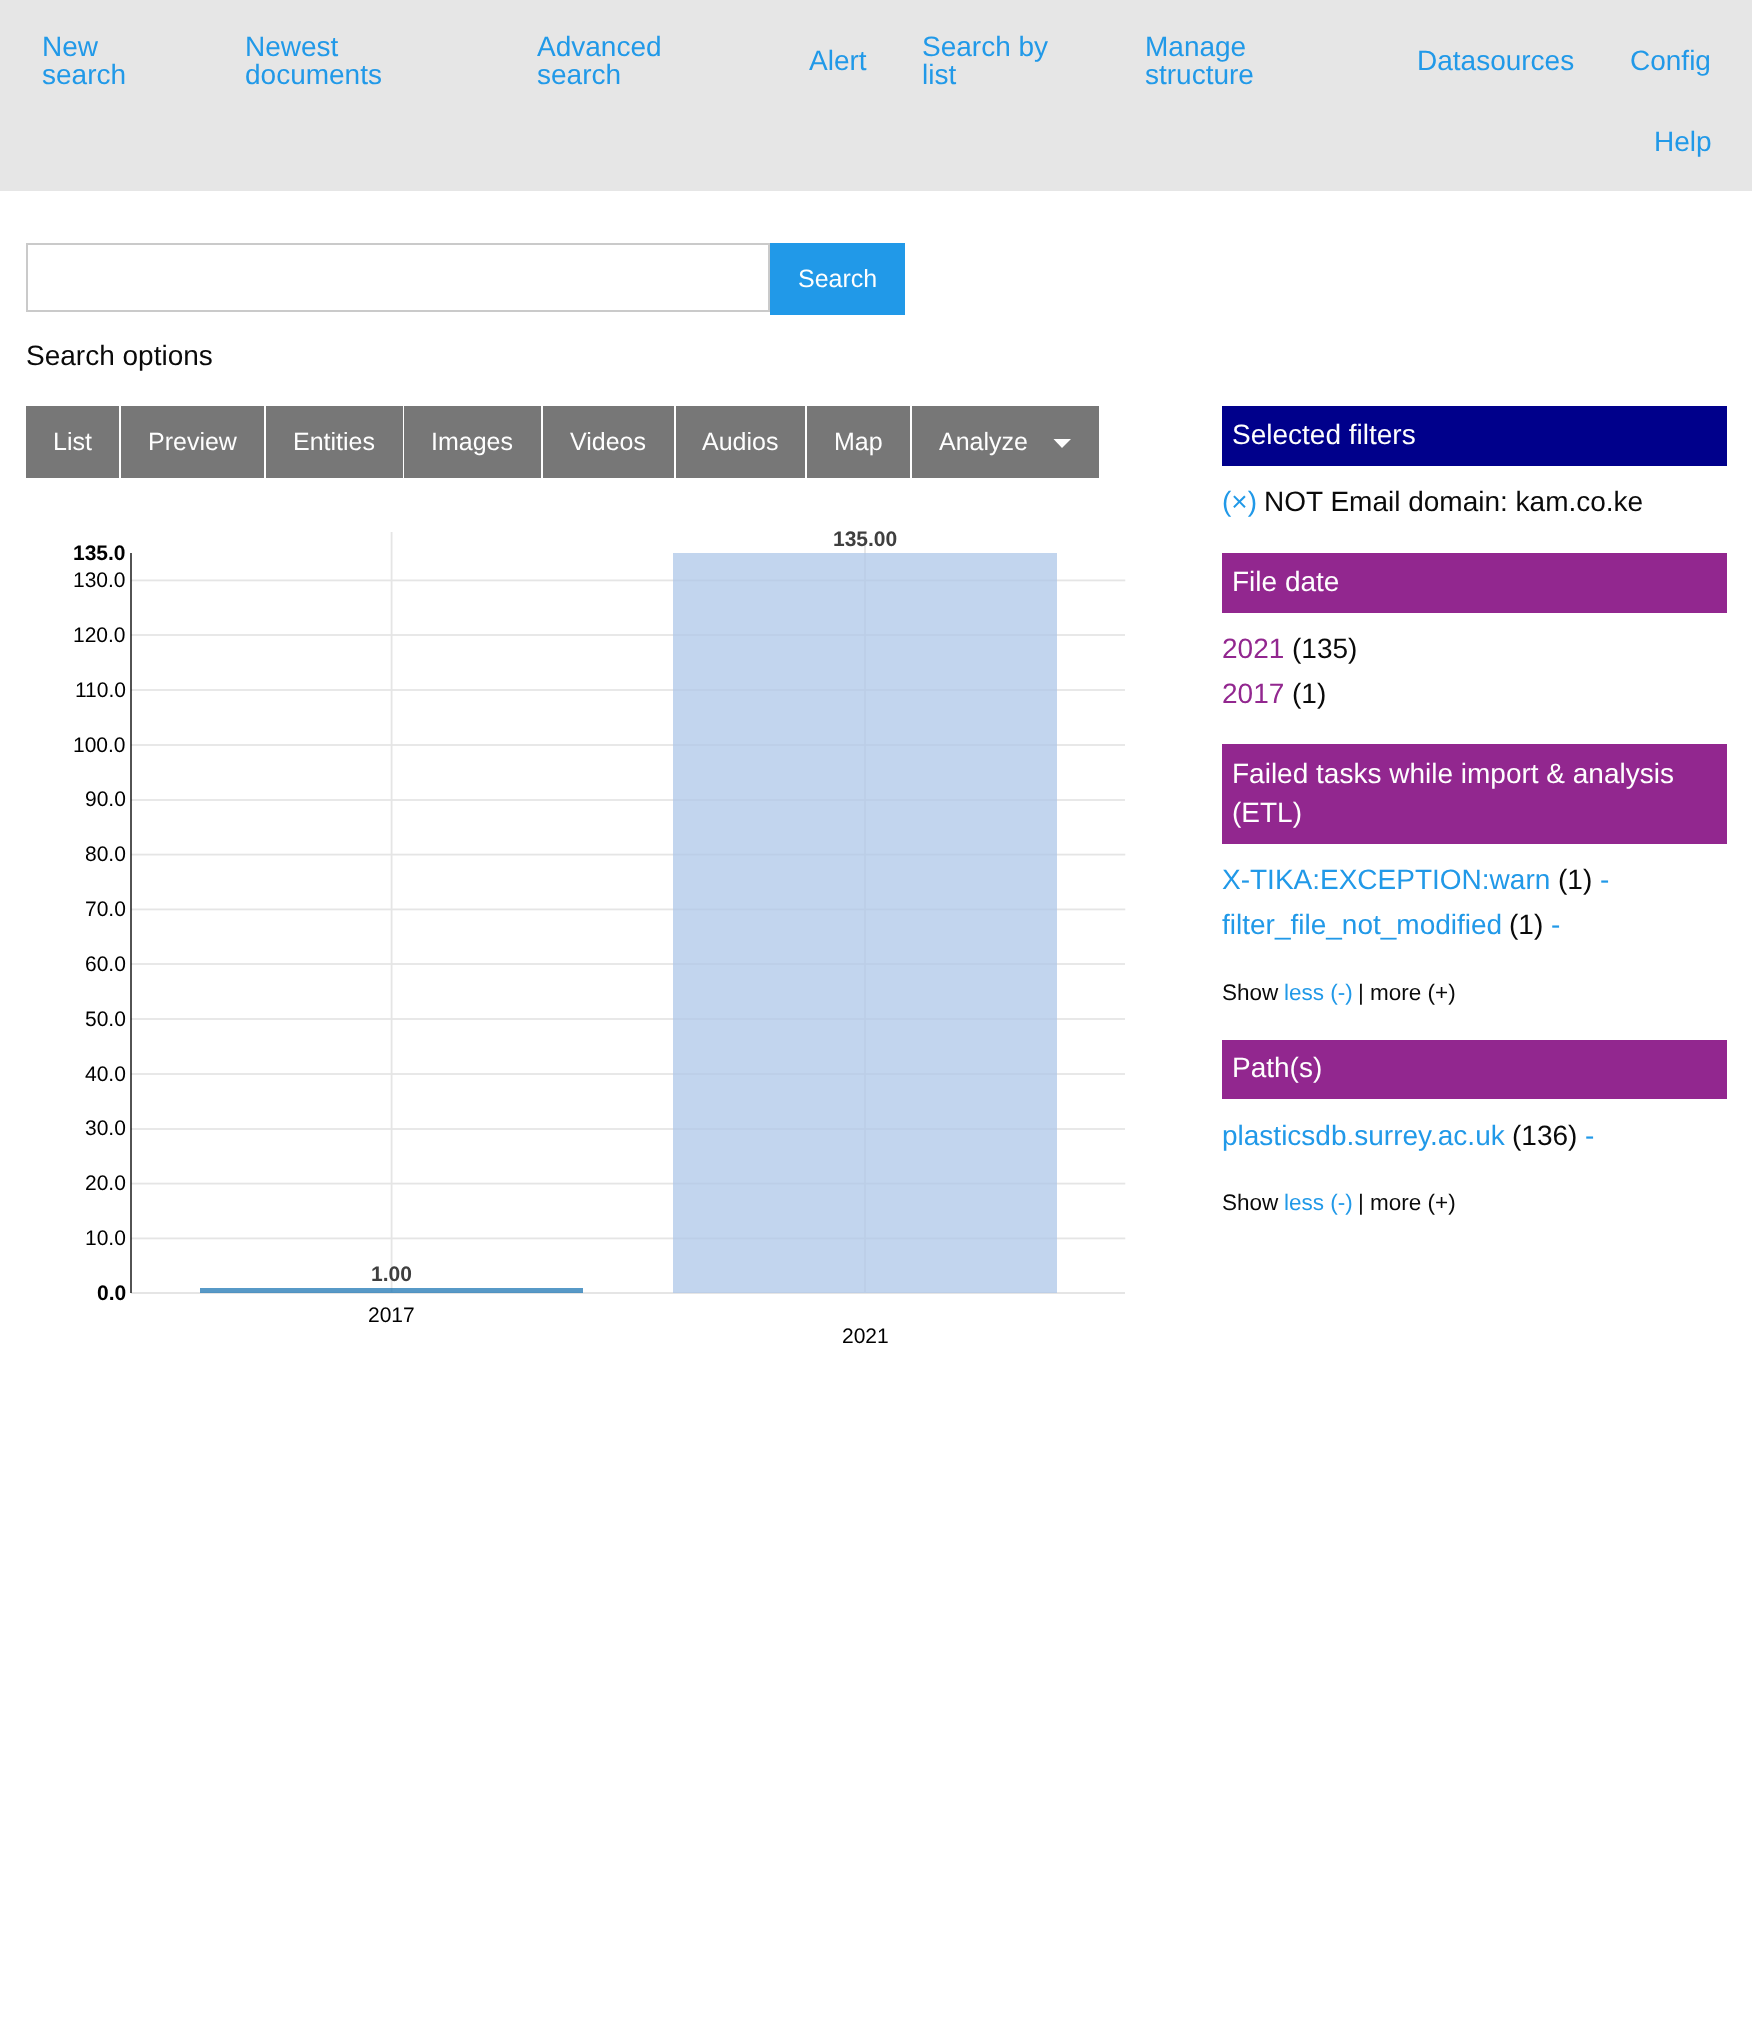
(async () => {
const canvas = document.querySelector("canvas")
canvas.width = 1752
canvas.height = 2042
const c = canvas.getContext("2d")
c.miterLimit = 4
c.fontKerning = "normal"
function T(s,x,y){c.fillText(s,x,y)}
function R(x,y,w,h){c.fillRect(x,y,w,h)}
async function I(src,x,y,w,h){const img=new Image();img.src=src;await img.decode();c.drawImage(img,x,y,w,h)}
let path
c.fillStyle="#fff"
R(0,0,1752,2042)
c.fillStyle="#e6e6e6"
R(0,0,1752,191)
c.font="28px Liberation Sans"
c.fillStyle="#2199e8"
T("New",42,56)
T("search",42,84)
T("Newest",245,56)
T("documents",245,84)
T("Advanced",537,56)
T("search",537,84)
T("Alert",809,70)
T("Search by",922,56)
T("list",922,84)
T("Manage",1145,56)
T("structure",1145,84)
T("Datasources",1417,70)
T("Config",1630,70)
T("Help",1654,151)
c.strokeStyle="#cacaca"
c.lineWidth=2
c.strokeRect(27,244,742,67)
R(770,243,135,72)
c.font="25px Liberation Sans"
c.fillStyle="#fefefe"
T("Search",798,287)
c.font="28px Liberation Sans"
c.fillStyle="#0a0a0a"
T("Search options",26,365)
c.fillStyle="#777"
R(26,406,93,72)
c.font="25px Liberation Sans"
c.fillStyle="#fefefe"
T("List",53,450)
c.fillStyle="#777"
R(121,406,143,72)
c.fillStyle="#fefefe"
T("Preview",148,450)
c.fillStyle="#777"
R(266,406,137,72)
c.fillStyle="#fefefe"
T("Entities",293,450)
c.fillStyle="#777"
R(404,406,137,72)
c.fillStyle="#fefefe"
T("Images",431,450)
c.fillStyle="#777"
R(543,406,131,72)
c.fillStyle="#fefefe"
T("Videos",570,450)
c.fillStyle="#777"
R(676,406,129,72)
c.fillStyle="#fefefe"
T("Audios",702,450)
c.fillStyle="#777"
R(807,406,103,72)
c.fillStyle="#fefefe"
T("Map",834,450)
c.fillStyle="#777"
R(912,406,187,72)
c.fillStyle="#fefefe"
T("Analyze",939,450)
path = new Path2D("M1053.5 439h17.5l-9 9z")
c.fill(path)
await I("1.png",130,532,996,762)
c.font="bold 21px Liberation Sans"
c.fillStyle="#3f3f3f"
T("135.00",833,546)
c.fillStyle="#000"
T("135.0",73,560)
c.font="21px Liberation Sans"
T("130.0",73,587)
T("120.0",73,642)
T("110.0",75,697)
T("100.0",73,752)
T("90.0",85,806)
T("80.0",85,861)
T("70.0",85,916)
T("60.0",85,971)
T("50.0",85,1026)
T("40.0",85,1081)
T("30.0",85,1135)
T("20.0",85,1190)
T("10.0",85,1245)
c.font="bold 21px Liberation Sans"
c.fillStyle="#3f3f3f"
T("1.00",371,1281)
c.fillStyle="#000"
T("0.0",97,1300)
c.font="21px Liberation Sans"
T("2017",368,1322)
T("2021",842,1343)
c.fillStyle="#00008b"
R(1222,406,505,60)
c.font="28px Liberation Sans"
c.fillStyle="#fefefe"
T("Selected filters",1232,444)
c.fillStyle="#2199e8"
T("(×)",1222,511)
c.fillStyle="#0a0a0a"
T("NOT Email domain: kam.co.ke",1264,511)
c.fillStyle="#92278f"
R(1222,553,505,60)
c.fillStyle="#fefefe"
T("File date",1232,591)
c.fillStyle="#92278f"
T("2021",1222,658)
c.fillStyle="#0a0a0a"
T("(135)",1292,658)
c.fillStyle="#92278f"
T("2017",1222,703)
c.fillStyle="#0a0a0a"
T("(1)",1292,703)
c.fillStyle="#92278f"
R(1222,744,505,100)
c.fillStyle="#fefefe"
T("Failed tasks while import & analysis",1232,783)
T("(ETL)",1232,822)
c.fillStyle="#2199e8"
T("X-TIKA:EXCEPTION:warn",1222,889)
c.fillStyle="#0a0a0a"
T("(1)",1558,889)
c.fillStyle="#2199e8"
T("-",1600,889)
T("filter_file_not_modified",1222,934)
c.fillStyle="#0a0a0a"
T("(1)",1509,934)
c.fillStyle="#2199e8"
T("-",1551,934)
c.font="22.5px Liberation Sans"
c.fillStyle="#0a0a0a"
T("Show",1222,1000)
c.fillStyle="#2199e8"
T("less (-)",1284,1000)
c.fillStyle="#0a0a0a"
T("| more (+)",1358,1000)
c.fillStyle="#92278f"
R(1222,1040,505,59)
c.font="28px Liberation Sans"
c.fillStyle="#fefefe"
T("Path(s)",1232,1077)
c.fillStyle="#2199e8"
T("plasticsdb.surrey.ac.uk",1222,1145)
c.fillStyle="#0a0a0a"
T("(136)",1512,1145)
c.fillStyle="#2199e8"
T("-",1585,1145)
c.font="22.5px Liberation Sans"
c.fillStyle="#0a0a0a"
T("Show",1222,1210)
c.fillStyle="#2199e8"
T("less (-)",1284,1210)
c.fillStyle="#0a0a0a"
T("| more (+)",1358,1210)
})()
